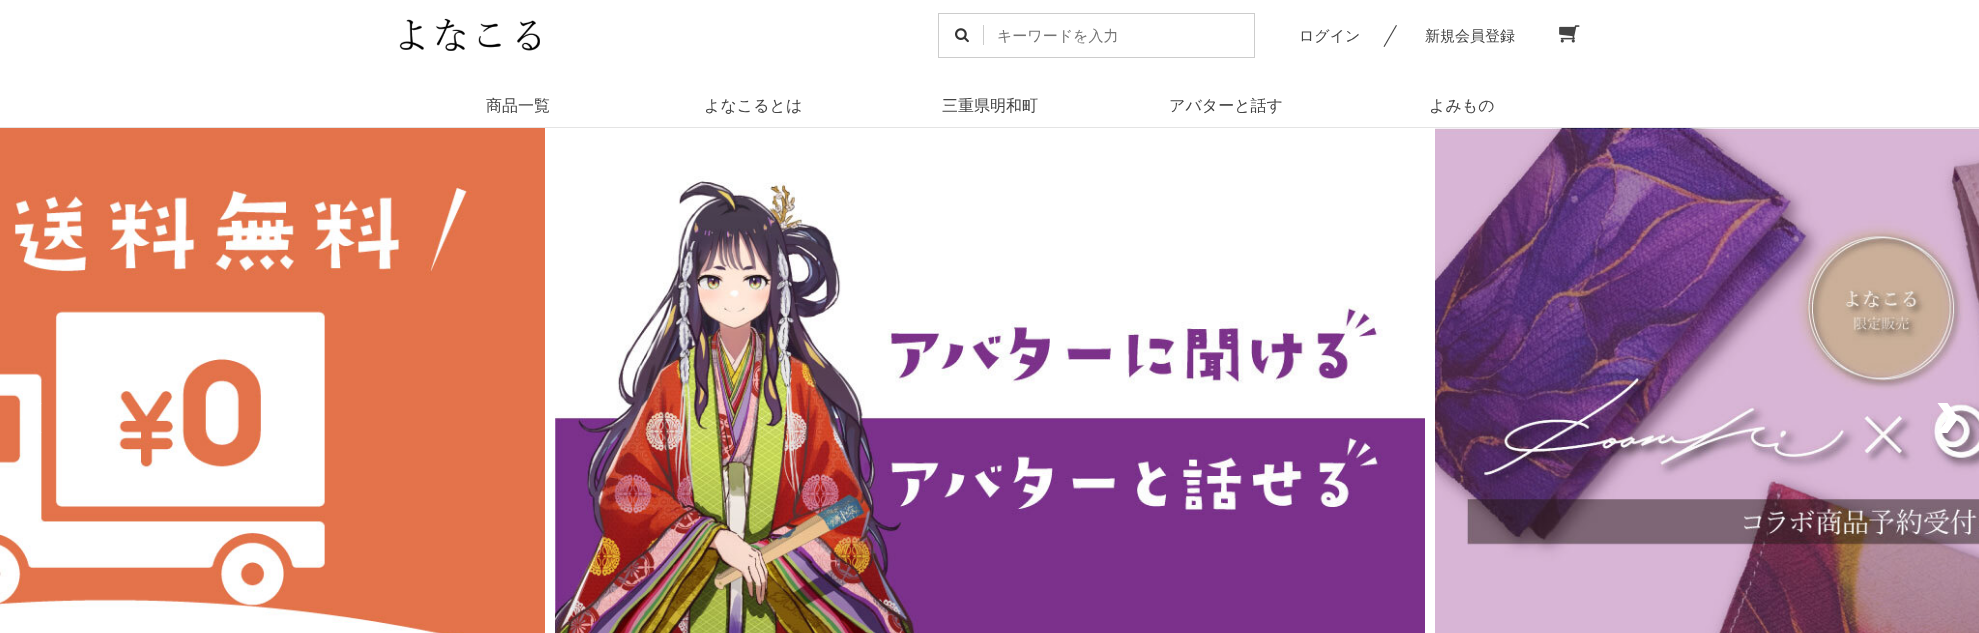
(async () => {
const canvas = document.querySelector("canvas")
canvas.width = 1979
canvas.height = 633
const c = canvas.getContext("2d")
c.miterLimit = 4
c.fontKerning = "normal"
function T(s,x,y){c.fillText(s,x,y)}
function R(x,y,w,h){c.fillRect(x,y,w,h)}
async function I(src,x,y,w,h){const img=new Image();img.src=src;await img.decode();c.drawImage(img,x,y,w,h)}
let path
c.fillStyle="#fff"
R(0,0,1979,633)
await I("1.png",399,18,141,33)
c.strokeStyle="#ccc"
c.strokeRect(938.5,13.5,316,44)
await I("2.png",955,28,14,15)
c.fillStyle="#ccc"
R(983,25,1,20)
c.font="500 15px WenQuanYi Zen Hei"
c.fillStyle="#757575"
T("キーワードを入力",997,41)
c.fillStyle="#444"
T("ログイン",1299,41)
path = new Path2D("M1383.5 46.5l12.5-21.5l1 .5l-12.5 21.5z")
c.fill(path)
T("新規会員登録",1425,41)
await I("3.png",1559,25,21,18)
c.font="500 16px WenQuanYi Zen Hei"
T("商品一覧",486,111)
T("よなこるとは",704,111)
T("三重県明和町",942,111)
T("アバターと話す",1169,111)
T("よみもの",1429,111)
c.fillStyle="#e4e4e4"
R(0,127,1979,1)
await I("4.png",0,128,545,505)
await I("5.png",555,176,870,457)
await I("6.png",1435,128,544,505)
c.fillStyle="#fff"
path = new Path2D("M31.5 403h10l-11 15h-10zm-11 15h10l11 15h-10z")
c.fill(path)
path = new Path2D("M1947.5 433h-10l11-15h10zm11-15h-10l-11-15h10z")
c.fill(path)
})()
